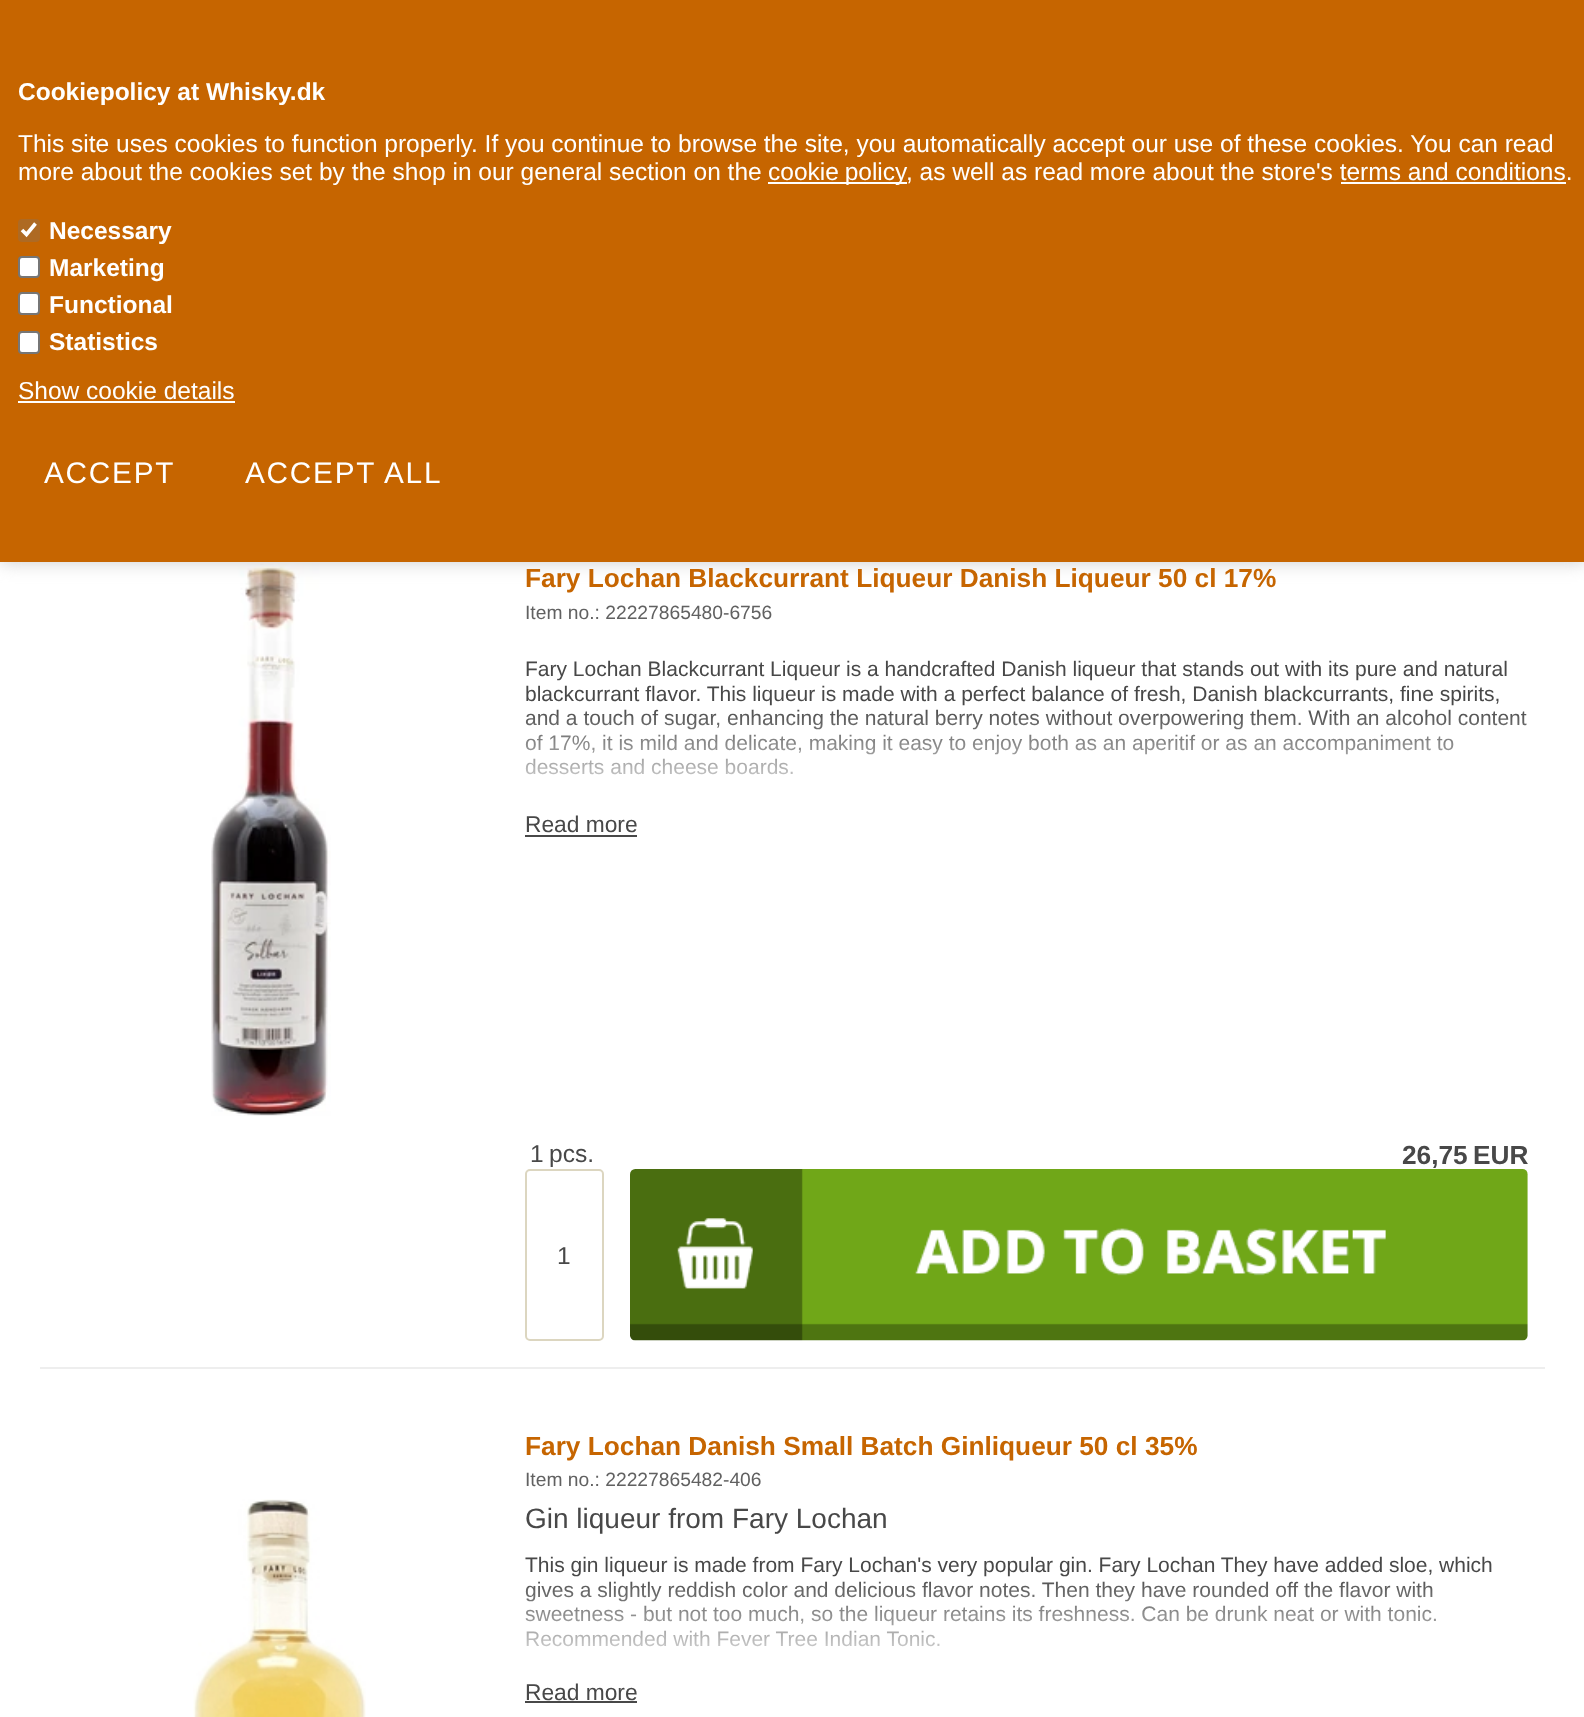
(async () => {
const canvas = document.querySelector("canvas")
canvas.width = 1584
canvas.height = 1717
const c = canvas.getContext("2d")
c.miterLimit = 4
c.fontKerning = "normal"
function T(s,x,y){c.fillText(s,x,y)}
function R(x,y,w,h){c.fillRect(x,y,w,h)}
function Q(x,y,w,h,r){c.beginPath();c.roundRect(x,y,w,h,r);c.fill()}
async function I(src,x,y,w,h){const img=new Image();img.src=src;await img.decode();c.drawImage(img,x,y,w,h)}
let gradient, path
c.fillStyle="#fff"
R(0,0,1584,1717)
await I("1.png",211,563,120,553)
c.fillStyle="#ccc"
c.filter="blur(9px)"
c.beginPath()
c.rect(0,0,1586,562)
c.fill()
c.filter="none"
c.fillStyle="#c66500"
R(0,0,1584,562)
c.font="bold 24.5px Liberation Sans"
c.fillStyle="#fff"
T("Cookiepolicy at Whisky.dk",18,100)
c.font="24.5px Liberation Sans"
T("This site uses cookies to function properly. If you continue to browse the site, you automatically accept our use of these cookies. You can read",18,152)
T("more about the cookies set by the shop in our general section on the",18,180)
R(768,182,139,2)
c.wordSpacing="-1px"
T("cookie policy",768,180)
c.wordSpacing="0px"
T(", as well as read more about the store's terms and conditions.",906,180)
R(1341,182,225,2)
c.fillStyle="#ae6a23"
Q(18,219,22,23,4)
path = new Path2D("M22 230l4.5 4.5l9-11")
c.strokeStyle="#fff"
c.lineWidth=3.6
c.stroke(path)
c.font="bold 24.5px Liberation Sans"
c.fillStyle="#fff"
T("Necessary",49,239)
c.beginPath()
c.roundRect(19,257,20,20,3)
c.fill()
c.strokeStyle="#767676"
c.lineWidth=2
c.stroke()
T("Marketing",49,276)
c.beginPath()
c.roundRect(19,293,20,21,3)
c.fill()
c.stroke()
T("Functional",49,313)
c.beginPath()
c.roundRect(19,332,20,21,3)
c.fill()
c.stroke()
T("Statistics",49,350)
c.font="24.5px Liberation Sans"
T("Show cookie details",18,399)
R(18,401,217,2)
c.letterSpacing="1.75px"
c.font="29.75px Liberation Sans"
T("ACCEPT",44,483)
T("ACCEPT ALL",245,483)
c.fillStyle="#eee"
R(40,1367,1505,2)
c.letterSpacing="0px"
c.font="bold 26.25px Liberation Sans"
c.fillStyle="#c66500"
T("Fary Lochan Blackcurrant Liqueur Danish Liqueur 50 cl 17%",525,587)
c.font="19.25px Liberation Sans"
c.fillStyle="#616161"
T("Item no.: 22227865480-6756",525,619)
c.font="21px Liberation Sans"
c.fillStyle="#484848"
T("Fary Lochan Blackcurrant Liqueur is a handcrafted Danish liqueur that stands out with its pure and natural",525,676)
T("blackcurrant flavor. This liqueur is made with a perfect balance of fresh, Danish blackcurrants, fine spirits,",525,701)
T("and a touch of sugar, enhancing the natural berry notes without overpowering them. With an alcohol content",525,725)
T("of 17%, it is mild and delicate, making it easy to enjoy both as an aperitif or as an accompaniment to",525,750)
T("desserts and cheese boards.",525,774)
gradient = c.createLinearGradient(1026,811,1026,706)
gradient.addColorStop(0,"#fff")
gradient.addColorStop(1,"#ffffff00")
c.fillStyle = gradient
R(525,710,1002,65)
c.font="22.75px Liberation Sans"
c.fillStyle="#484848"
T("Read more",525,832)
R(525,835,112,2)
c.font="24.5px Liberation Sans"
T("1",530,1162)
T("pcs.",549,1162)
c.font="bold 26.25px Liberation Sans"
T("26,75",1402,1164)
T("EUR",1473,1164)
c.beginPath()
c.roundRect(526,1170,77,170,4)
c.strokeStyle="#dcd6c0"
c.stroke()
c.font="24.5px Liberation Sans"
T("1",557,1264)
await I("2.png",630,1169,898,172)
await I("3.png",193,1499,173,218)
c.font="bold 26.25px Liberation Sans"
c.fillStyle="#c66500"
T("Fary Lochan Danish Small Batch Ginliqueur 50 cl 35%",525,1455)
c.font="19.25px Liberation Sans"
c.fillStyle="#616161"
T("Item no.: 22227865482-406",525,1486)
c.font="28px Liberation Sans"
c.fillStyle="#484848"
T("Gin liqueur from Fary Lochan",525,1528)
c.font="21px Liberation Sans"
T("This gin liqueur is made from Fary Lochan's very popular gin. Fary Lochan They have added sloe, which",525,1572)
T("gives a slightly reddish color and delicious flavor notes. Then they have rounded off the flavor with",525,1597)
T("sweetness - but not too much, so the liqueur retains its freshness. Can be drunk neat or with tonic.",525,1621)
T("Recommended with Fever Tree Indian Tonic.",525,1646)
gradient = c.createLinearGradient(1026,1679,1026,1574)
gradient.addColorStop(0,"#fff")
gradient.addColorStop(1,"#ffffff00")
c.fillStyle = gradient
R(525,1582,911,65)
c.font="22.75px Liberation Sans"
c.fillStyle="#484848"
T("Read more",525,1700)
R(525,1701,112,2)
})()
